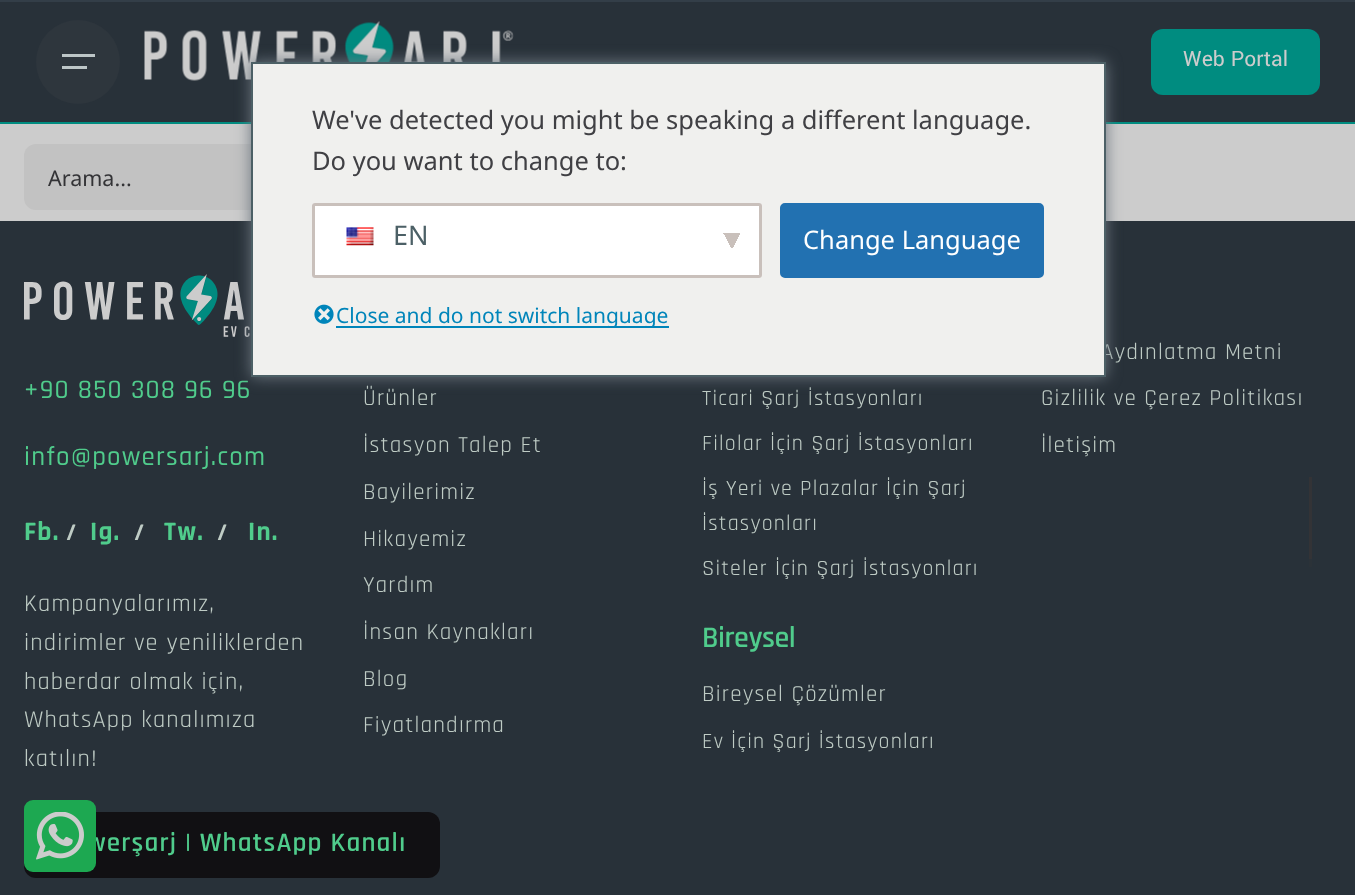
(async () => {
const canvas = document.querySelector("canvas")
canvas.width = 1355
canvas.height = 895
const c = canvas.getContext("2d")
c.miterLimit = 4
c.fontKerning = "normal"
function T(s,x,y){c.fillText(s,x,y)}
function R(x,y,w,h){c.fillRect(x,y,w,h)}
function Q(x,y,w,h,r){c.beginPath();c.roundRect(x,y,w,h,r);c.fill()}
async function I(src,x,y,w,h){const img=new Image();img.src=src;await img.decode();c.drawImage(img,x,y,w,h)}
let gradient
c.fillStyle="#fff"
R(0,0,1355,895)
c.fillStyle="#333e48"
R(0,0,1355,122)
c.fillStyle="#00afa0"
R(0,122,1355,2)
c.fillStyle="#3a444d"
c.beginPath()
c.arc(78,62,42,0,7)
c.fill()
c.fillStyle="#edf8f9"
R(62,54,33,3)
R(62,66,25,3)
await I("1.png",144,21,370,60)
c.fillStyle="#00afa0"
Q(1151,29,169,66,12)
c.font="23.5px Yantramanav"
c.fillStyle="#fff"
T("Web Portal",1183,66)
c.fillStyle="#f3f3f3"
Q(24,144,432,66,12)
c.font="21.5px Noto Sans"
c.fillStyle="#404044"
T("Arama...",48,186)
c.fillStyle="#333e48"
R(0,221,1355,674)
await I("2.png",24,274,226,63)
c.letterSpacing="1.2px"
c.font="500 27px Rajdhani"
c.fillStyle="#64ffaf"
T("+90 850 308 96 96",24,398)
T("info@powersarj.com",24,465)
c.font="bold 27px Rajdhani"
T("Fb.",24,540)
c.font="bold 24.25px Rajdhani"
c.fillStyle="#effff7"
T("/",66,540)
c.font="bold 27px Rajdhani"
c.fillStyle="#64ffaf"
T("Ig.",90,540)
c.font="bold 24.25px Rajdhani"
c.fillStyle="#effff7"
T("/",134,540)
c.font="bold 27px Rajdhani"
c.fillStyle="#64ffaf"
T("Tw.",164,540)
c.font="bold 24.25px Rajdhani"
c.fillStyle="#effff7"
T("/",217,540)
c.font="bold 27px Rajdhani"
c.fillStyle="#64ffaf"
T("In.",248,540)
c.font="24.25px Rajdhani"
c.fillStyle="#effff7"
T("Kampanyalarımız,",24,611)
T("indirimler ve yeniliklerden",24,650)
T("haberdar olmak için,",24,689)
T("WhatsApp kanalımıza",24,727)
T("katılın!",24,766)
c.fillStyle="#161518"
Q(24,812,416,66,12)
c.font="600 27px Rajdhani"
c.fillStyle="#64ffaf"
T("werşarj | WhatsApp Kanalı",87,851)
c.font="23px Rajdhani"
c.fillStyle="#effff7"
T("Ürünler",363,405)
T("İstasyon Talep Et",363,452)
T("Bayilerimiz",363,499)
T("Hikayemiz",363,546)
T("Yardım",363,592)
T("İnsan Kaynakları",363,639)
T("Blog",363,686)
T("Fiyatlandırma",363,732)
c.font="21.9px Rajdhani"
T("Ticari Şarj İstasyonları",702,405)
T("Filolar İçin Şarj İstasyonları",702,450)
T("İş Yeri ve Plazalar İçin Şarj",702,495)
T("İstasyonları",702,530)
T("Siteler İçin Şarj İstasyonları",702,575)
c.letterSpacing="-0.5px"
c.font="600 30px Rajdhani"
c.fillStyle="#64ffaf"
T("Bireysel",702,647)
c.letterSpacing="1.2px"
c.font="23px Rajdhani"
c.fillStyle="#effff7"
T("Bireysel Çözümler",702,701)
c.font="21.9px Rajdhani"
T("Ev İçin Şarj İstasyonları",702,748)
c.font="23px Rajdhani"
T("Aydınlatma Metni",1101,359)
T("Gizlilik ve Çerez Politikası",1041,405)
T("İletişim",1041,452)
c.fillStyle="#404044"
R(1309,477,3,82)
c.fillStyle="#363f47"
R(1309,559,3,8)
c.fillStyle="#25d366"
Q(24,800,72,72,9)
await I("5.png",36,812,48,48)
c.fillStyle="#00000033"
R(0,2,1355,893)
c.fillStyle="#6c7781"
c.filter="blur(7.5px)"
c.beginPath()
c.rect(251,62,855,315)
c.fill()
c.filter="none"
c.fillStyle="#f0f0ee"
c.beginPath()
c.rect(252,63,853,313)
c.fill()
c.strokeStyle="#4c6066"
c.lineWidth=2
c.stroke()
c.letterSpacing="0px"
c.font="25.5px Noto Sans"
c.fillStyle="#404044"
T("We've detected you might be speaking a different language.",312,129)
T("Do you want to change to:",312,170)
c.fillStyle="#fff"
Q(312,203,450,75,3)
gradient = c.createLinearGradient(729,237,744,245)
gradient.addColorStop(.5,"#c9c0bb")
gradient.addColorStop(.5,"#fff")
c.fillStyle = gradient
R(732,233,9,15)
gradient = c.createLinearGradient(720,245,735,237)
gradient.addColorStop(.5,"#fff")
gradient.addColorStop(.5,"#c9c0bb")
c.fillStyle = gradient
R(723,233,9,15)
c.beginPath()
c.roundRect(313.5,204.5,447,72,1.5)
c.strokeStyle="#c9c0bb"
c.lineWidth=3
c.stroke()
await I("3.png",346,227,28,19)
c.font="27px Noto Sans"
c.fillStyle="#4c6066"
T("EN",393,245)
c.fillStyle="#2271b1"
c.beginPath()
c.roundRect(781,204,262,73,4)
c.fill()
c.strokeStyle="#2271b1"
c.lineWidth=2
c.stroke()
c.font="25.5px Noto Sans"
c.fillStyle="#fff"
T("Change Language",803,249)
await I("4.png",314,304,20,20)
c.fillStyle="#0085ba"
R(336,326,333,2)
c.font="21px Noto Sans"
T("Close and do not switch language",336,323)
})()
